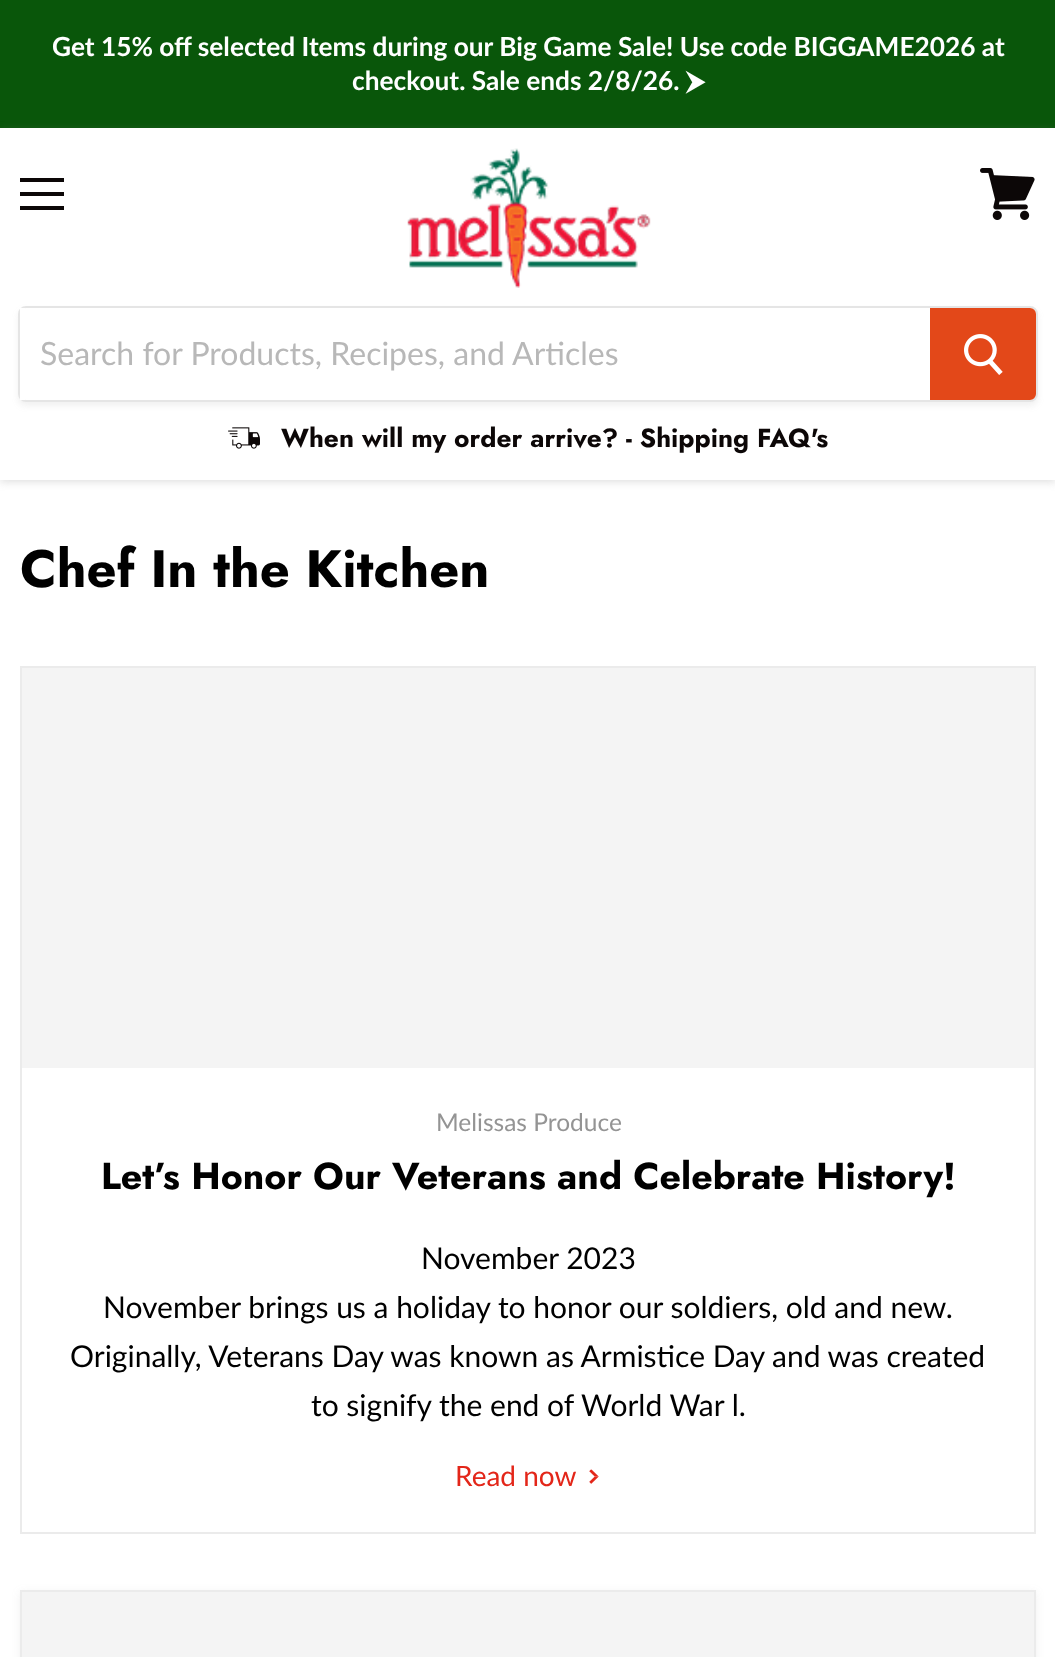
(async () => {
const canvas = document.querySelector("canvas")
canvas.width = 1055
canvas.height = 1657
const c = canvas.getContext("2d")
c.miterLimit = 4
c.fontKerning = "normal"
function T(s,x,y){c.fillText(s,x,y)}
function R(x,y,w,h){c.fillRect(x,y,w,h)}
async function I(src,x,y,w,h){const img=new Image();img.src=src;await img.decode();c.drawImage(img,x,y,w,h)}
let path
c.fillStyle="#fff"
R(0,0,1055,1657)
c.fillStyle="#09560a"
R(0,0,1055,128)
c.font="bold 26.25px Lato"
c.fillStyle="#fff"
T("Get 15% off selected Items during our Big Game Sale! Use code BIGGAME2026 at",52,56)
T("checkout. Sale ends 2/8/26.",352,90)
c.font="bold 26.25px FreeSans"
T("⮞",686,90)
c.save()
path = new Path2D("M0 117h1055v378h-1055zm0 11h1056v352h-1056z")
c.clip(path,"evenodd")
c.fillStyle="#7f7f7f40"
c.filter="blur(4px)"
c.beginPath()
c.rect(0,130,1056,352)
c.fill()
c.filter="none"
c.restore()
c.fillStyle="#0c0707"
R(20,178,44,4)
R(20,192,44,4)
R(20,206,44,4)
await I("1.png",980,168,55,52)
await I("2.png",407,148,244,140)
c.save()
path = new Path2D("M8 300h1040v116h-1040zm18 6h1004c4.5 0 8 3.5 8 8v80c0 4.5-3.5 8-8 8h-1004c-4.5 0-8-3.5-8-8v-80c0-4.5 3.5-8 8-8z")
c.clip(path,"evenodd")
c.fillStyle="#7f7f7f1c"
c.filter="blur(3px)"
c.beginPath()
c.roundRect(18,310,1020,96,8)
c.fill()
c.filter="none"
c.restore()
c.beginPath()
c.roundRect(19,307,1018,94,7)
c.strokeStyle="#7f7f7f33"
c.lineWidth=2
c.stroke()
c.fillStyle="#fff"
R(20,308,5,92)
c.font="32px Lato"
c.fillStyle="#b8b8b8"
T("Search for Products, Recipes, and Articles",40,365)
c.fillStyle="#e34819"
c.beginPath()
c.roundRect(931,309,104,90,[0,5,5,0])
c.fill()
c.strokeStyle="#e34819"
c.stroke()
await I("3.png",964,334,39,41)
await I("4.png",228,427,32,22)
c.font="bold 26.25px Jost"
c.fillStyle="#0c0707"
T("When will my order arrive? - Shipping FAQ's",281,447)
c.font="bold 52.5px Jost"
c.fillStyle="#000"
T("Chef In the Kitchen",20,587)
c.strokeStyle="#ebebeb"
c.strokeRect(21,667,1014,866)
c.fillStyle="#f4f4f4"
R(22,668,1012,400)
c.font="24.5px Lato"
c.fillStyle="#949494"
T("Melissas Produce",436,1131)
c.font="bold 37.5px Jost"
c.fillStyle="#000"
T("Let’s Honor Our Veterans and Celebrate History!",101,1189)
c.font="30px Lato"
T("November 2023",421,1269)
T("November brings us a holiday to honor our soldiers, old and new.",103,1318)
T("Originally, Veterans Day was known as Armistice Day and was created",70,1367)
T("to signify the end of World War l.",311,1416)
c.font="28px Lato"
c.fillStyle="#e32619"
T("Read now",455,1486)
await I("5.png",589,1469,10,15)
c.fillStyle="#7f7f7f1c"
c.filter="blur(4px)"
c.beginPath()
c.rect(20,1592,1016,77)
c.fill()
c.filter="none"
c.strokeRect(21,1591,1014,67)
c.fillStyle="#f4f4f4"
R(22,1592,1012,65)
})()
